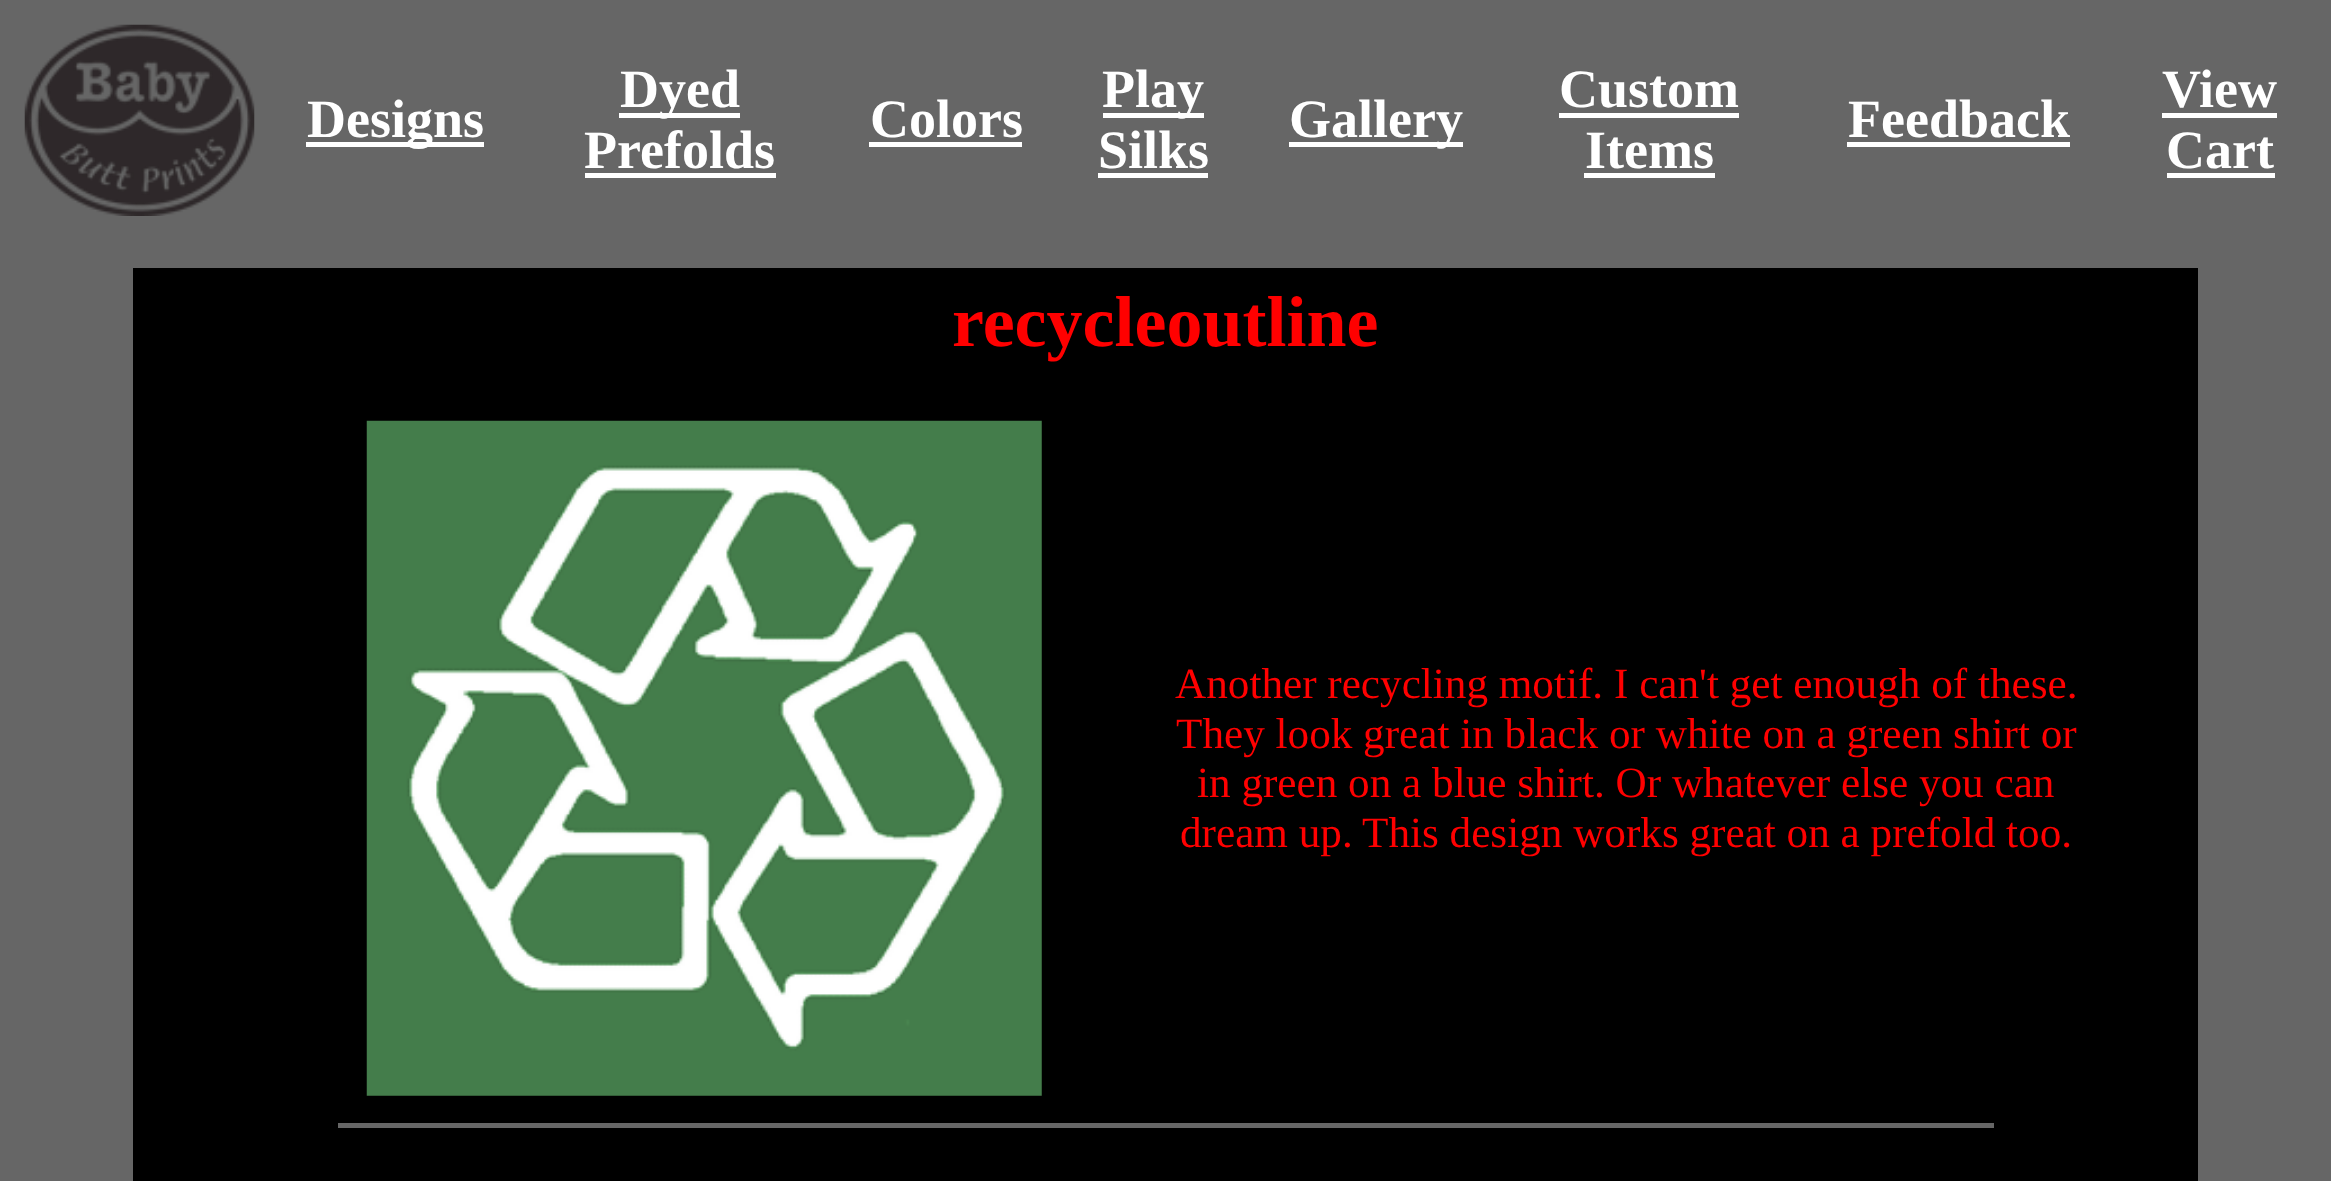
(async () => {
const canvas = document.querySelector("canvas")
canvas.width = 2331
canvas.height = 1181
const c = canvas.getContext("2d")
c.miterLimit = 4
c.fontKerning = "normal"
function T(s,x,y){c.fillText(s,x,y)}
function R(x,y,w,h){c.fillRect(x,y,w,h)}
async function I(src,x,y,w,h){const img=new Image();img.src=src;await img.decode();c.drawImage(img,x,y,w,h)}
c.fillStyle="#666"
R(0,0,2331,1181)
await I("1.png",24,24,231,192)
c.fillStyle="#fff"
R(306,142,178,5)
c.font="bold 54px Liberation Serif"
T("Designs",307,137)
R(619,113,121,5)
T("Dyed",620,107)
T("Prefolds",584,168)
R(585,173,191,5)
T("Colors",870,137)
R(869,142,153,5)
R(1103,113,101,5)
T("Play",1102,107)
T("Silks",1098,168)
R(1098,173,110,5)
R(1289,142,174,5)
T("Gallery",1289,137)
T("Custom",1559,107)
R(1559,113,180,5)
T("Items",1585,168)
R(1584,173,131,5)
T("Feedback",1848,137)
R(1847,142,223,5)
T("View",2162,107)
R(2162,113,115,5)
T("Cart",2166,168)
R(2167,173,108,5)
c.fillStyle="#000"
R(133,268,2065,913)
c.font="bold 72px Liberation Serif"
c.fillStyle="#f00"
T("recycleoutline",952,346)
await I("2.png",366,420,676,676)
c.font="43.2px Liberation Serif"
T("Another recycling motif.",1175,698)
T("I can't get enough of these.",1614,698)
T("They look great in black or white on a green shirt or",1176,748)
T("in green on a blue shirt. Or whatever else you can",1197,797)
T("dream up.",1180,847)
T("This design works great on a prefold too.",1362,847)
c.fillStyle="#666"
R(338,1123,1656,5)
})()
